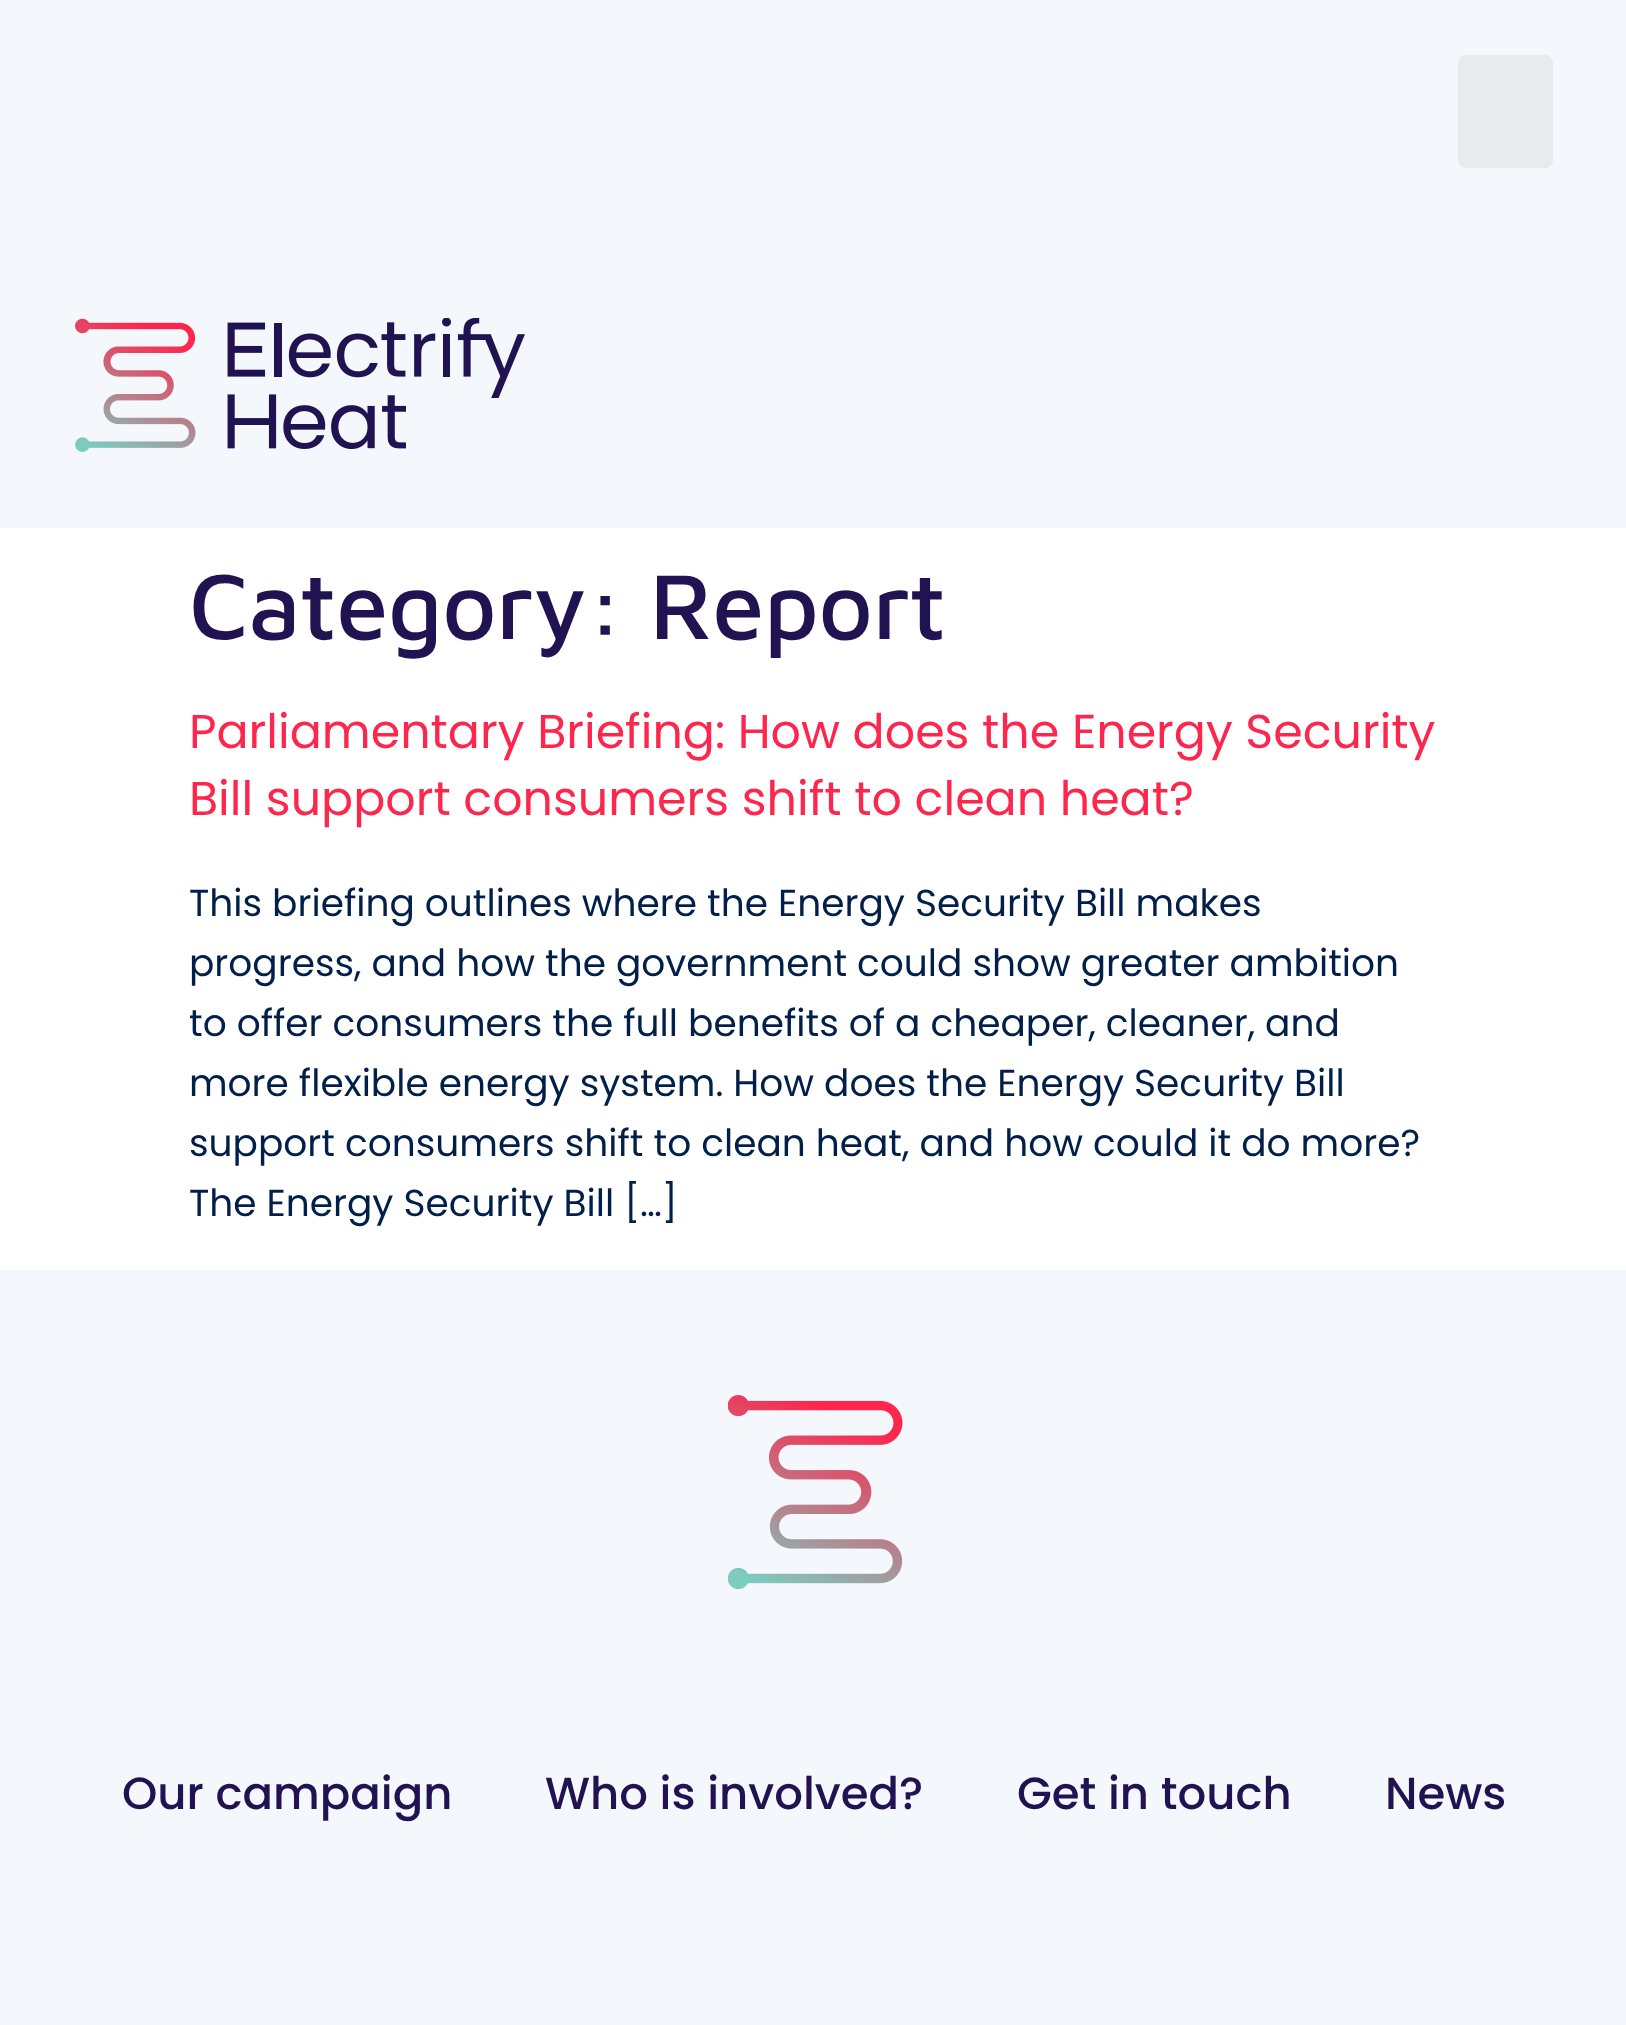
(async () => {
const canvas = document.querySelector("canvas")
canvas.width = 1626
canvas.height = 2025
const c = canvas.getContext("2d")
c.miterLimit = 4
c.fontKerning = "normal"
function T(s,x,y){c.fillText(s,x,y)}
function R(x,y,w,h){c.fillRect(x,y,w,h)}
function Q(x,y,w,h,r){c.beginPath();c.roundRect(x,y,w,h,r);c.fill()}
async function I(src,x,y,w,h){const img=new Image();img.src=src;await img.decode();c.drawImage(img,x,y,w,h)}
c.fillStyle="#fff"
R(0,0,1626,2025)
c.fillStyle="#f4f7fb"
R(0,0,1626,528)
c.fillStyle="#e8ebee"
Q(1458,55,95,113,8)
await I("1.png",75,318,450,134)
c.letterSpacing="-0.75px"
c.font="500 95px Maven Pro"
c.fillStyle="#211252"
T("Category: Report",189,639)
c.letterSpacing="0px"
c.font="47.5px Poppins"
c.fillStyle="#fd274e"
T("Parliamentary Briefing: How does the Energy Security",189,748)
T("Bill support consumers shift to clean heat?",189,815)
c.font="37.5px Poppins"
c.fillStyle="#011f48"
T("This briefing outlines where the Energy Security Bill makes",189,916)
T("progress, and how the government could show greater ambition",189,976)
T("to offer consumers the full benefits of a cheaper, cleaner, and",189,1036)
T("more flexible energy system. How does the Energy Security Bill",189,1096)
T("support consumers shift to clean heat, and how could it do more?",189,1156)
T("The Energy Security Bill […]",189,1216)
c.fillStyle="#f4f7fb"
R(0,1270,1626,755)
await I("2.png",728,1395,175,195)
c.font="500 45px Poppins"
c.fillStyle="#211252"
T("Our campaign",122,1809)
T("Who is involved?",545,1809)
T("Get in touch",1017,1809)
T("News",1385,1809)
})()
